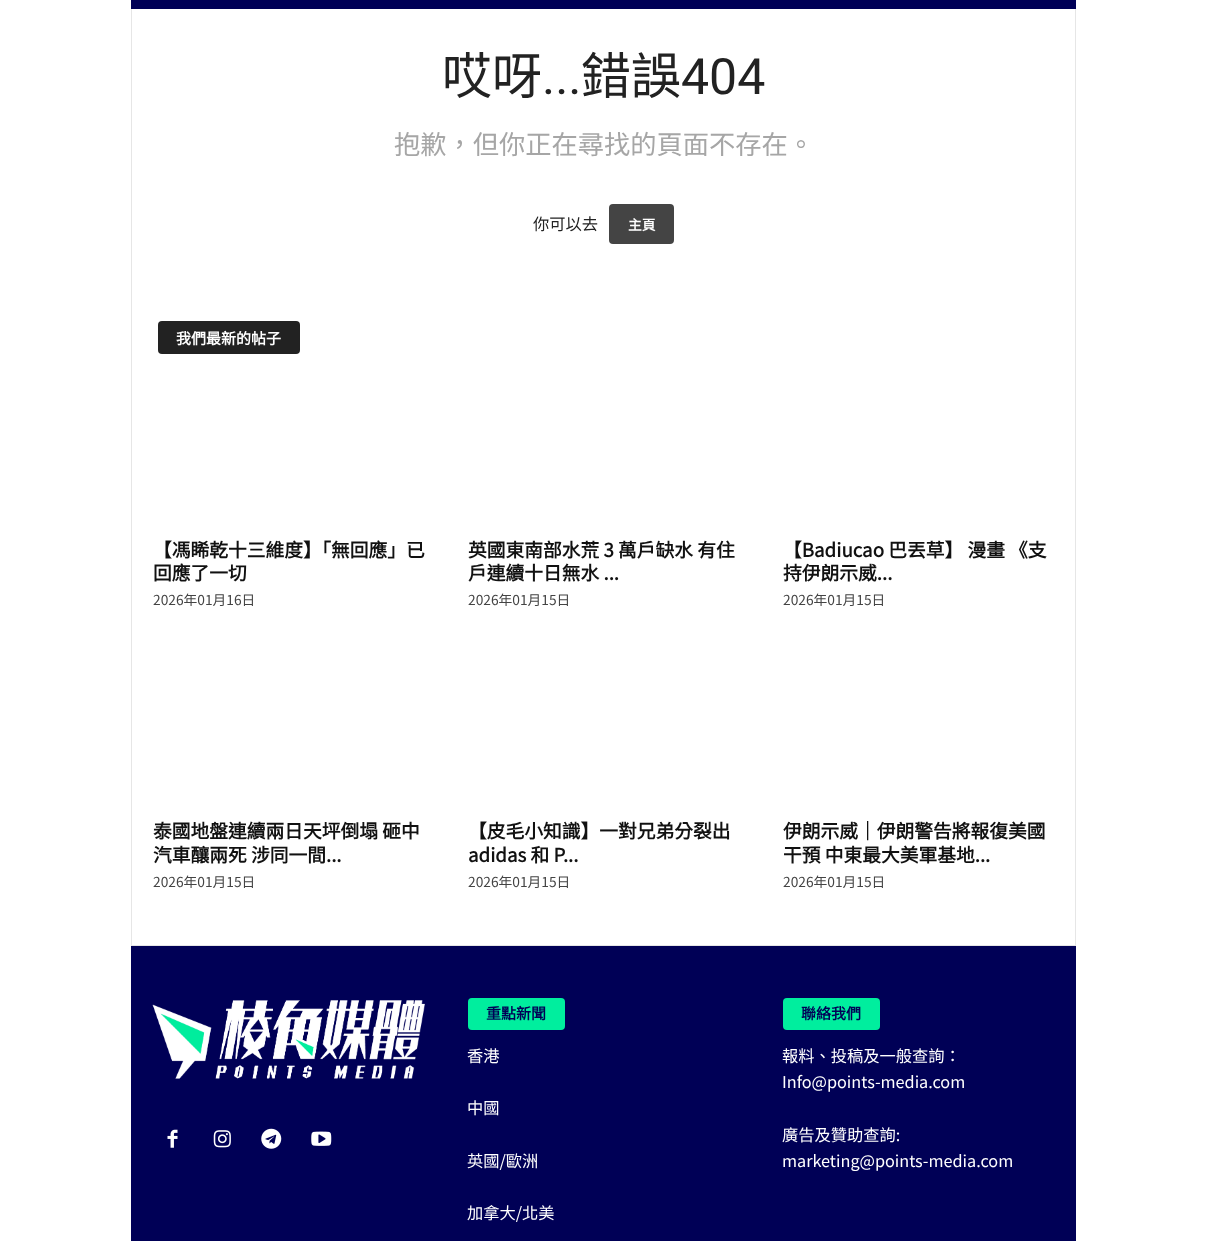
(async () => {
const canvas = document.querySelector("canvas")
canvas.width = 1206
canvas.height = 1241
const c = canvas.getContext("2d")
c.miterLimit = 4
c.fontKerning = "normal"
function T(s,x,y){c.fillText(s,x,y)}
function R(x,y,w,h){c.fillRect(x,y,w,h)}
function Q(x,y,w,h,r){c.beginPath();c.roundRect(x,y,w,h,r);c.fill()}
async function I(src,x,y,w,h){const img=new Image();img.src=src;await img.decode();c.drawImage(img,x,y,w,h)}
c.fillStyle="#fff"
R(0,0,1206,1241)
c.fillStyle="#000056"
R(131,0,945,9)
c.fillStyle="#e6e6e6"
R(131,945,945,1)
R(131,9,1,936)
c.font="50px Noto Sans CJK HK"
c.fillStyle="#222"
T("哎呀",442,94)
c.font="50px Roboto"
T("...",542,94)
c.font="50px Noto Sans CJK HK"
T("錯誤",581,94)
c.font="50px Roboto"
T("404",681,94)
c.font="26.25px Noto Sans CJK HK"
c.fillStyle="#a6a6a6"
T("抱歉，但你正在尋找的頁面不存在。",394,154)
c.font="100 16.25px Noto Sans TC"
c.fillStyle="#222"
T("你可以去",533,230)
c.fillStyle="#444"
Q(609,204,65,40,4)
c.font="bold 13.75px Noto Sans TC"
c.fillStyle="#fff"
T("主頁",628,230)
c.fillStyle="#222"
Q(158,321,142,33,4)
c.font="bold 15px Noto Sans TC"
c.fillStyle="#fff"
T("我們最新的帖子",176,344)
c.font="bold 18.75px Noto Sans TC"
c.fillStyle="#111"
T("【馮睎乾十三維度】「無回應」已",153,557)
T("回應了一切",153,580)
c.font="100 13.75px Noto Sans TC"
c.fillStyle="#444"
T("2026年01月16日",153,605)
c.font="bold 18.75px Noto Sans TC"
c.fillStyle="#111"
T("英國東南部水荒 3 萬戶缺水 有住",468,557)
T("戶連續十日無水 ...",468,580)
c.font="100 13.75px Noto Sans TC"
c.fillStyle="#444"
T("2026年01月15日",468,605)
c.font="bold 18.75px Noto Sans TC"
c.fillStyle="#111"
T("【Badiucao 巴丟草】 漫畫 《支",783,557)
T("持伊朗示威...",783,580)
c.font="100 13.75px Noto Sans TC"
c.fillStyle="#444"
T("2026年01月15日",783,605)
c.font="bold 18.75px Noto Sans TC"
c.fillStyle="#111"
T("泰國地盤連續兩日天坪倒塌 砸中",153,838)
T("汽車釀兩死 涉同一間...",153,862)
c.font="100 13.75px Noto Sans TC"
c.fillStyle="#444"
T("2026年01月15日",153,887)
c.font="bold 18.75px Noto Sans TC"
c.fillStyle="#111"
T("【皮毛小知識】一對兄弟分裂出",468,838)
T("adidas 和 P...",468,862)
c.font="100 13.75px Noto Sans TC"
c.fillStyle="#444"
T("2026年01月15日",468,887)
c.font="bold 18.75px Noto Sans TC"
c.fillStyle="#111"
T("伊朗示威｜伊朗警告將報復美國",783,838)
T("干預 中東最大美軍基地...",783,862)
c.font="100 13.75px Noto Sans TC"
c.fillStyle="#444"
T("2026年01月15日",783,887)
c.fillStyle="#e6e6e6"
R(1075,9,1,936)
c.fillStyle="#000056"
R(131,946,945,295)
await I("1.png",152,1000,273,79)
await I("2.png",167,1129,11,19)
await I("3.png",213,1130,18,18)
await I("4.png",261,1128,21,21)
await I("5.png",311,1131,21,15)
c.fillStyle="#00ee9e"
Q(468,998,97,32,4)
c.font="bold 15px Noto Sans TC"
c.fillStyle="#000056"
T("重點新聞",486,1019)
c.font="100 16.25px Noto Sans TC"
c.fillStyle="#fff"
T("香港",467,1062)
T("中國",467,1114)
T("英國/歐洲",467,1167)
T("加拿大/北美",467,1219)
c.fillStyle="#00ee9e"
Q(783,998,97,32,4)
c.font="bold 15px Noto Sans TC"
c.fillStyle="#000056"
T("聯絡我們",801,1019)
c.font="100 16.25px Noto Sans TC"
c.fillStyle="#fff"
T("報料、投稿及一般查詢：",782,1062)
T("Info@points-media.com",782,1088)
T("廣告及贊助查詢:",782,1141)
T("marketing@points-media.com",782,1167)
})()
